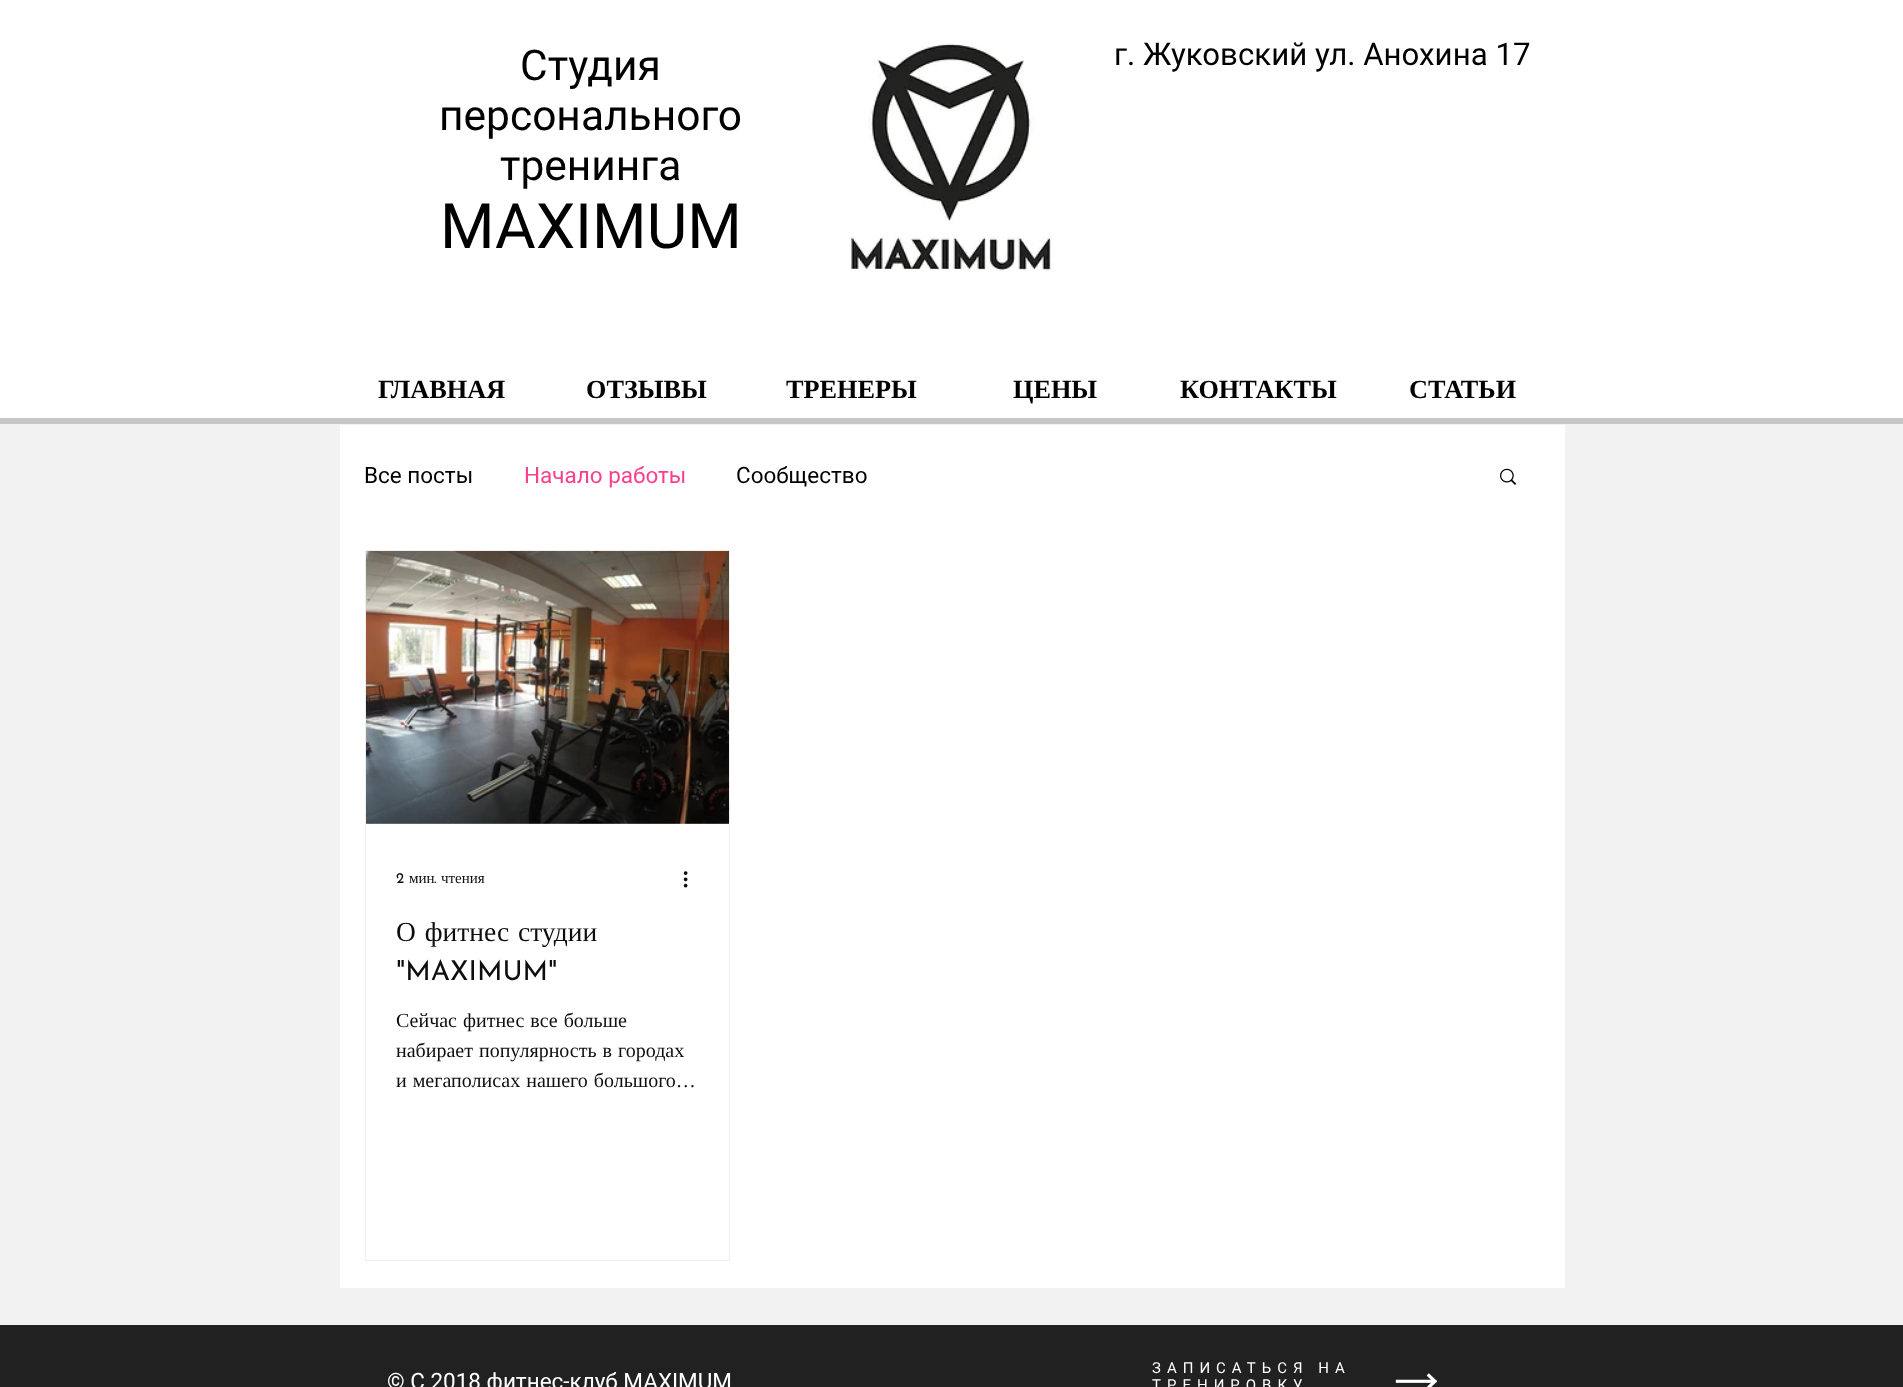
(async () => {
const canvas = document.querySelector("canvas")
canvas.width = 1903
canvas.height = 1387
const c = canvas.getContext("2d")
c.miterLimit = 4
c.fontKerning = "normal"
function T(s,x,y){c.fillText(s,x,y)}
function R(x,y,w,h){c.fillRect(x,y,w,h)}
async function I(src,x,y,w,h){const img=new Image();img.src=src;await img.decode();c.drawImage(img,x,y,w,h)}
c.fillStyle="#f2f2f2"
R(0,0,1903,1387)
c.fillStyle="#fff"
R(0,0,1903,418)
c.fillStyle="#c7c7c7"
R(0,418,1903,6)
c.font="42.5px Roboto"
c.fillStyle="#000"
T("Студия",520,80)
T("персонального",439,130)
T("тренинга",500,180)
c.font="62.5px Roboto"
T("MAXIMUM",440,248)
await I("1.png",849,43,204,229)
c.font="31.25px Roboto"
T("г. Жуковский ул. Анохина 17",1114,65)
c.font="bold 26.25px Liberation Serif"
T("ГЛАВНАЯ",378,398)
T("ОТЗЫВЫ",586,398)
T("ТРЕНЕРЫ",786,398)
T("ЦЕНЫ",1013,398)
T("КОНТАКТЫ",1180,398)
T("СТАТЬИ",1409,398)
c.fillStyle="#fff"
R(340,425,1225,863)
c.font="22.5px Roboto"
c.fillStyle="#000"
T("Все посты",364,483)
c.fillStyle="#f9408a"
T("Начало работы",524,483)
c.fillStyle="#000"
T("Сообщество",736,483)
await I("2.png",1500,468,17,17)
c.strokeStyle="#efefef"
c.strokeRect(365.5,550.5,364,710)
await I("3.png",366,551,363,273)
c.fillStyle="#ffffff30"
R(366,823,363,1)
c.font="15px Josefin Sans"
c.fillStyle="#0e0e0e"
T("2",396,883)
c.font="15px Liberation Serif"
T("мин",409,883)
c.font="15px Josefin Sans"
T(".",434,883)
c.font="15px Liberation Serif"
T("чтения",441,883)
await I("4.png",683,871,5,17)
c.wordSpacing="2px"
c.font="27.5px Liberation Serif"
T("О фитнес студии",396,941)
c.wordSpacing="0px"
c.font="27.5px Josefin Sans"
T("\"MAXIMUM\"",396,980)
c.wordSpacing="1px"
c.font="20px Liberation Serif"
T("Сейчас фитнес все больше",396,1027)
T("набирает популярность в городах",396,1057)
T("и мегаполисах нашего большого…",396,1087)
c.fillStyle="#212121"
R(0,1325,1903,62)
c.wordSpacing="0px"
c.font="22.5px Roboto"
c.fillStyle="#fff"
T("© С 2018 фитнес-клуб MAXIMUM",387,1389)
c.letterSpacing="6px"
c.font="15px Roboto"
T("ЗАПИСАТЬСЯ НА",1152,1373)
T("ТРЕНИРОВКУ",1152,1390)
await I("5.png",1395,1373,43,14)
})()
